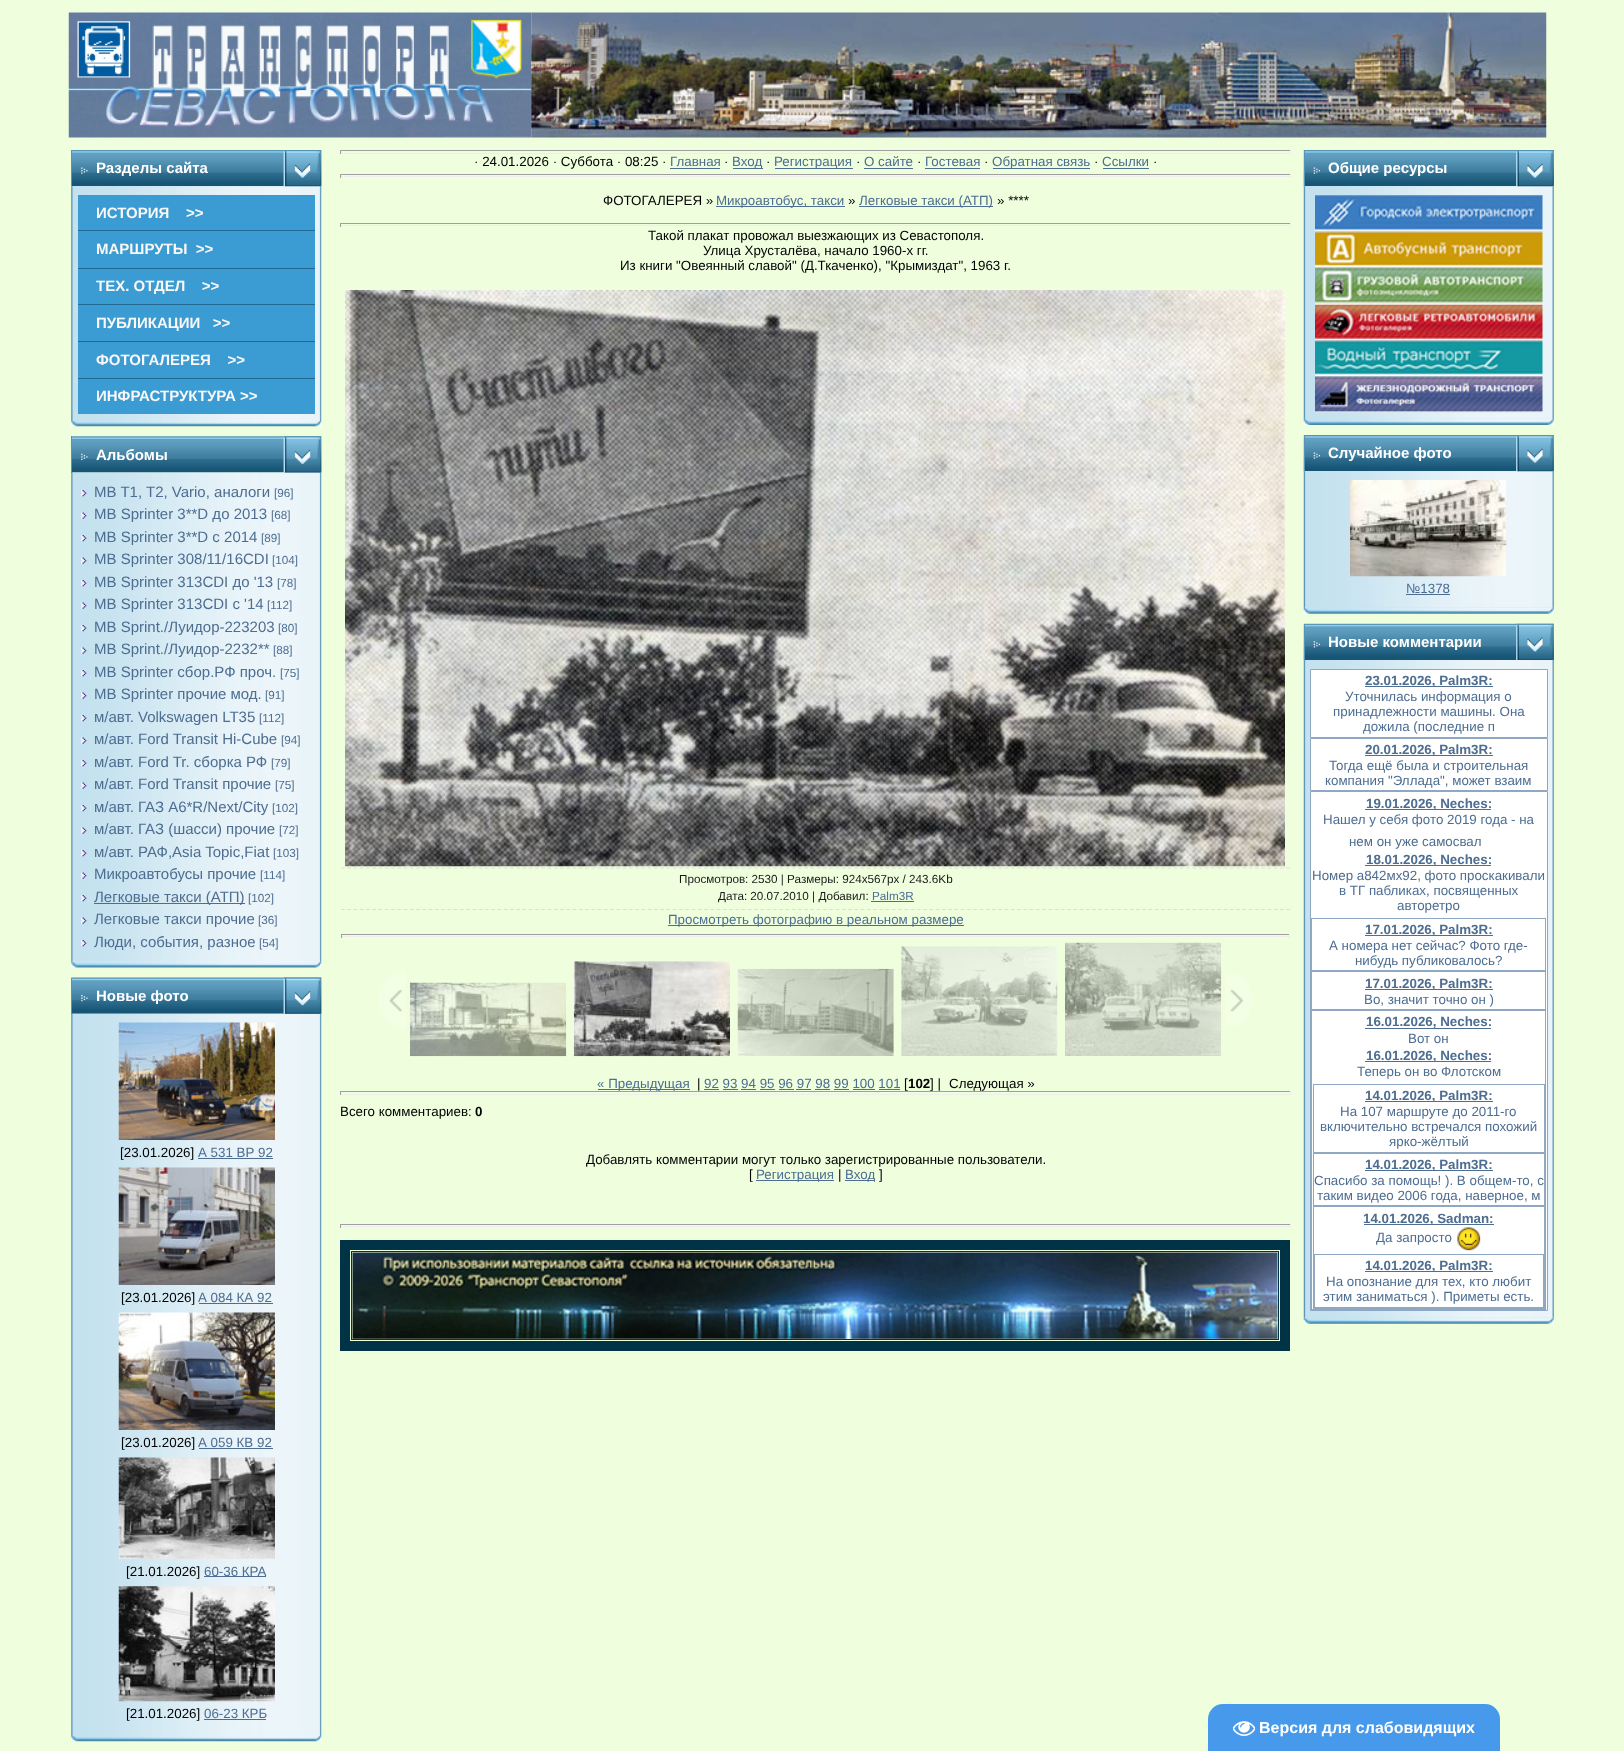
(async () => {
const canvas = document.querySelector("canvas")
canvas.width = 1624
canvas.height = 1751
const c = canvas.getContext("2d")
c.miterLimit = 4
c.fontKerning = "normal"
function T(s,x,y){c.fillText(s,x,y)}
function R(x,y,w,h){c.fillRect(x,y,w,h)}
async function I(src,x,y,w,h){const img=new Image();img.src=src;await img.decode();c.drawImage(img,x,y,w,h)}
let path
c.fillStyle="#efffde"
R(0,0,1624,1751)
await I("1.png",68,12,464,126)
await I("2.png",531,12,1016,126)
await I("3.png",72,150,212,36)
c.fillStyle="#5694b5"
R(71,150,1,36)
await I("4.png",81,167,7,7)
c.font="bold 15px Liberation Sans"
c.fillStyle="#fff"
T("Разделы сайта",96,173)
await I("5.png",283,150,39,37)
c.fillStyle="#c3e1ef"
R(71,186,250,234)
await I("7.png",71,186,251,234)
await I("6.png",283,150,39,37)
c.fillStyle="#3a9cd3"
R(78,195,237,35)
c.fillStyle="#fbf7f7"
T("ИСТОРИЯ    >>",96,218)
c.fillStyle="#3a9cd3"
R(78,231,237,37)
c.fillStyle="#236a92"
R(78,230,237,1)
c.fillStyle="#fbf7f7"
T("МАРШРУТЫ  >>",96,254)
c.fillStyle="#3a9cd3"
R(78,269,237,35)
c.fillStyle="#236a92"
R(78,268,237,1)
c.fillStyle="#fbf7f7"
T("ТЕХ. ОТДЕЛ    >>",96,291)
c.fillStyle="#3a9cd3"
R(78,305,237,36)
c.fillStyle="#236a92"
R(78,304,237,1)
c.fillStyle="#fbf7f7"
T("ПУБЛИКАЦИИ   >>",96,328)
c.fillStyle="#3a9cd3"
R(78,342,237,36)
c.fillStyle="#236a92"
R(78,341,237,1)
c.fillStyle="#fbf7f7"
T("ФОТОГАЛЕРЕЯ    >>",96,365)
c.fillStyle="#3a9cd3"
R(78,379,237,35)
c.fillStyle="#236a92"
R(78,378,237,1)
c.fillStyle="#fbf7f7"
T("ИНФРАСТРУКТУРА >>",96,401)
await I("8.png",71,420,251,7)
await I("9.png",72,436,212,37)
c.fillStyle="#5694b5"
R(71,436,1,37)
await I("10.png",81,453,7,7)
c.fillStyle="#fff"
T("Альбомы",96,460)
await I("11.png",283,436,39,37)
await I("13.png",71,472,251,490)
await I("12.png",283,436,39,37)
await I("14.png",81,490,6,7)
c.font="15px Liberation Sans"
c.fillStyle="#4d6d91"
T("MB T1, T2, Vario, аналоги",94,497)
c.font="11.7px Liberation Sans"
T("[96]",274,497)
await I("15.png",81,512,6,7)
c.font="15px Liberation Sans"
T("MB Sprinter 3**D до 2013",94,519)
c.font="11.7px Liberation Sans"
T("[68]",271,519)
await I("14.png",81,535,6,7)
c.font="15px Liberation Sans"
T("MB Sprinter 3**D с 2014",94,542)
c.font="11.7px Liberation Sans"
T("[89]",261,542)
await I("16.png",81,557,6,7)
c.font="15px Liberation Sans"
T("MB Sprinter 308/11/16CDI",94,564)
c.font="11.7px Liberation Sans"
T("[104]",272,564)
await I("14.png",81,580,6,7)
c.font="15px Liberation Sans"
T("MB Sprinter 313CDI до '13",94,587)
c.font="11.7px Liberation Sans"
T("[78]",277,587)
await I("16.png",81,602,6,7)
c.font="15px Liberation Sans"
T("MB Sprinter 313CDI с '14",94,609)
c.font="11.7px Liberation Sans"
T("[112]",267,609)
await I("14.png",81,625,6,7)
c.font="15px Liberation Sans"
T("MB Sprint./Луидор-223203",94,632)
c.font="11.7px Liberation Sans"
T("[80]",278,632)
await I("16.png",81,647,6,7)
c.font="15px Liberation Sans"
T("MB Sprint./Луидор-2232**",94,654)
c.font="11.7px Liberation Sans"
T("[88]",273,654)
await I("14.png",81,670,6,7)
c.font="15px Liberation Sans"
T("MB Sprinter сбор.РФ проч.",94,677)
c.font="11.7px Liberation Sans"
T("[75]",280,677)
await I("16.png",81,692,6,7)
c.font="15px Liberation Sans"
T("MB Sprinter прочие мод.",94,699)
c.font="11.7px Liberation Sans"
T("[91]",265,699)
await I("14.png",81,715,6,7)
c.font="15px Liberation Sans"
T("м/авт. Volkswagen LT35",94,722)
c.font="11.7px Liberation Sans"
T("[112]",259,722)
await I("16.png",81,737,6,7)
c.font="15px Liberation Sans"
T("м/авт. Ford Transit Hi-Cube",94,744)
c.font="11.7px Liberation Sans"
T("[94]",281,744)
await I("14.png",81,760,6,7)
c.font="15px Liberation Sans"
T("м/авт. Ford Tr. сборка РФ",94,767)
c.font="11.7px Liberation Sans"
T("[79]",271,767)
await I("16.png",81,782,6,7)
c.font="15px Liberation Sans"
T("м/авт. Ford Transit прочие",94,789)
c.font="11.7px Liberation Sans"
T("[75]",275,789)
await I("14.png",81,805,6,7)
c.font="15px Liberation Sans"
T("м/авт. ГАЗ A6*R/Next/City",94,812)
c.font="11.7px Liberation Sans"
T("[102]",272,812)
await I("16.png",81,827,6,7)
c.font="15px Liberation Sans"
T("м/авт. ГАЗ (шасси) прочие",94,834)
c.font="11.7px Liberation Sans"
T("[72]",279,834)
await I("14.png",81,850,6,7)
c.font="15px Liberation Sans"
T("м/авт. РАФ,Asia Topic,Fiat",94,857)
c.font="11.7px Liberation Sans"
T("[103]",273,857)
await I("16.png",81,872,6,7)
c.font="15px Liberation Sans"
T("Микроавтобусы прочие",94,879)
c.font="11.7px Liberation Sans"
T("[114]",260,879)
await I("14.png",81,895,6,7)
R(94,903,151,1)
c.font="15px Liberation Sans"
T("Легковые такси (АТП)",94,902)
c.font="11.7px Liberation Sans"
T("[102]",248,902)
await I("16.png",81,917,6,7)
c.font="15px Liberation Sans"
T("Легковые такси прочие",94,924)
c.font="11.7px Liberation Sans"
T("[36]",258,924)
await I("14.png",81,940,6,7)
c.font="15px Liberation Sans"
T("Люди, события, разное",94,947)
c.font="11.7px Liberation Sans"
T("[54]",259,947)
await I("17.png",71,961,251,7)
await I("18.png",71,977,213,37)
c.fillStyle="#5694b5"
R(71,978,1,36)
await I("19.png",81,995,7,7)
c.font="bold 15px Liberation Sans"
c.fillStyle="#fff"
T("Новые фото",96,1001)
await I("20.png",283,977,39,37)
await I("22.png",71,1013,251,722)
await I("21.png",283,977,39,37)
await I("23.png",118,1022,157,118)
c.font="13.35px Liberation Sans"
c.fillStyle="#000"
T("[23.01.2026]",120,1157)
c.fillStyle="#4d6d91"
T("А 531 ВР 92",198,1157)
R(198,1158,75,1)
await I("24.png",118,1167,157,118)
c.fillStyle="#000"
T("[23.01.2026]",121,1302)
c.fillStyle="#4d6d91"
T("А 084 КА 92",198,1302)
R(199,1303,74,1)
await I("25.png",118,1312,157,118)
c.fillStyle="#000"
T("[23.01.2026]",121,1447)
c.fillStyle="#4d6d91"
T("А 059 КВ 92",198,1447)
R(199,1448,74,1)
await I("26.png",118,1457,157,102)
c.fillStyle="#000"
T("[21.01.2026]",126,1576)
c.fillStyle="#4d6d91"
R(204,1576,62,1)
T("60-36 КРА",204,1576)
await I("27.png",118,1586,157,116)
c.fillStyle="#000"
T("[21.01.2026]",126,1718)
c.fillStyle="#4d6d91"
T("06-23 КРБ",204,1718)
R(204,1719,62,1)
await I("8.png",71,1735,251,7)
c.fillStyle="#9f9f9f"
R(340,150,951,1)
c.fillStyle="#eee"
R(1290,150,1,4)
R(340,153,951,1)
c.fillStyle="#9f9f9f"
R(340,150,1,4)
c.fillStyle="#000"
T("· 24.01.2026 · Суббота · 08:25 ·",474,166)
c.fillStyle="#4d6d91"
T("Главная",670,166)
R(670,168,50,1)
c.fillStyle="#000"
T("·",724,166)
c.fillStyle="#4d6d91"
R(733,168,30,1)
T("Вход",732,166)
c.fillStyle="#000"
T("·",766,166)
c.fillStyle="#4d6d91"
R(775,168,78,1)
T("Регистрация",774,166)
c.fillStyle="#000"
T("·",856,166)
c.fillStyle="#4d6d91"
T("О сайте",864,166)
R(864,168,49,1)
c.fillStyle="#000"
T("·",917,166)
c.fillStyle="#4d6d91"
T("Гостевая",925,166)
R(925,168,55,1)
c.fillStyle="#000"
T("·",984,166)
c.fillStyle="#4d6d91"
R(993,168,97,1)
T("Обратная связь",992,166)
c.fillStyle="#000"
T("·",1094,166)
c.fillStyle="#4d6d91"
T("Ссылки",1102,166)
R(1103,168,46,1)
c.fillStyle="#000"
T("·",1153,166)
c.fillStyle="#9f9f9f"
R(340,174,951,1)
c.fillStyle="#eee"
R(1290,174,1,4)
R(340,176,951,1)
c.fillStyle="#9f9f9f"
R(340,174,1,4)
c.fillStyle="#000"
T("ФОТОГАЛЕРЕЯ »",603,205)
c.fillStyle="#4d6d91"
R(716,206,129,1)
T("Микроавтобус, такси",716,205)
c.fillStyle="#000"
T("»",848,205)
c.fillStyle="#4d6d91"
R(859,206,134,1)
T("Легковые такси (АТП)",859,205)
c.fillStyle="#000"
T("» ****",997,205)
c.fillStyle="#9f9f9f"
R(340,223,951,1)
c.fillStyle="#eee"
R(1290,223,1,4)
R(340,225,951,1)
c.fillStyle="#9f9f9f"
R(340,223,1,4)
c.fillStyle="#000"
T("Такой плакат провожал выезжающих из Севастополя.",648,240)
T("Улица Хрусталёва, начало 1960-х гг.",703,255)
T("Из книги \"Овеянный славой\" (Д.Ткаченко), \"Крымиздат\", 1963 г.",620,270)
await I("28.png",345,290,940,577)
path = new Path2D("M341 868h949")
c.strokeStyle="#ddd"
c.lineWidth=1.2
c.setLineDash([3.75,2.51])
c.stroke(path)
path = new Path2D("M341 909.5h949")
c.stroke(path)
c.font="11.7px Liberation Sans"
c.fillStyle="#1a1a1a"
T("Просмотров: 2530 | Размеры: 924x567px / 243.6Kb",679,883)
T("Дата: 20.07.2010 | Добавил:",718,900)
c.fillStyle="#4d6d91"
T("Palm3R",872,900)
R(871,901,43,1)
R(668,925,296,1)
c.font="13.35px Liberation Sans"
T("Просмотреть фотографию в реальном размере",668,924)
c.fillStyle="#9f9f9f"
R(341,934,949,1)
c.fillStyle="#eee"
R(1289,934,1,4)
R(341,936,949,1)
c.fillStyle="#9f9f9f"
R(341,934,1,4)
await I("29.png",379,971,27,58)
await I("30.png",410,982,157,75)
await I("31.png",573,961,157,96)
await I("32.png",737,968,157,88)
await I("33.png",901,946,157,110)
await I("34.png",1065,942,157,114)
await I("35.png",1225,971,27,58)
c.fillStyle="#4d6d91"
R(598,1089,92,1)
T("« Предыдущая",597,1088)
c.fillStyle="#000"
T("|",697,1088)
c.fillStyle="#4d6d91"
T("92 93 94 95 96 97 98 99 100 101",704,1088)
R(704,1089,15,1)
c.fillStyle="#000"
T("[",904,1088)
c.font="bold 13.35px Liberation Sans"
T("102",908,1088)
c.font="13.35px Liberation Sans"
T("] |",930,1088)
T("Следующая »",949,1088)
c.fillStyle="#4d6d91"
R(723,1089,15,1)
R(741,1089,15,1)
R(760,1089,15,1)
R(779,1089,15,1)
R(796,1089,15,1)
R(815,1089,15,1)
R(834,1089,15,1)
R(853,1089,22,1)
R(879,1089,21,1)
c.fillStyle="#9f9f9f"
R(340,1091,951,1)
c.fillStyle="#eee"
R(1290,1091,1,4)
R(340,1094,951,1)
c.fillStyle="#9f9f9f"
R(340,1091,1,4)
c.fillStyle="#000"
T("Всего комментариев:",340,1116)
c.font="bold 13.35px Liberation Sans"
T("0",475,1116)
c.font="13.35px Liberation Sans"
T("Добавлять комментарии могут только зарегистрированные пользователи.",586,1164)
T("[",749,1179)
c.fillStyle="#4d6d91"
R(756,1180,78,1)
T("Регистрация",756,1179)
c.fillStyle="#000"
T("|",838,1179)
c.fillStyle="#4d6d91"
R(845,1180,30,1)
T("Вход",845,1179)
c.fillStyle="#000"
T("]",879,1179)
c.fillStyle="#9f9f9f"
R(340,1224,951,1)
c.fillStyle="#eee"
R(1290,1224,1,4)
R(340,1226,951,1)
c.fillStyle="#9f9f9f"
R(340,1224,1,4)
c.strokeStyle="#003346"
c.lineWidth=10
c.setLineDash([])
c.strokeRect(345,1245,940,101)
c.lineWidth=1
c.strokeRect(351.5,1251.5,927,88)
await I("36.png",352,1252,926,87)
await I("37.png",1303,150,214,37)
c.fillStyle="#5694b5"
R(1304,150,1,36)
await I("38.png",1313,167,7,7)
c.font="bold 15px Liberation Sans"
c.fillStyle="#fff"
T("Общие ресурсы",1328,173)
await I("39.png",1516,150,38,36)
c.fillStyle="#c3e1ef"
R(1304,186,250,233)
await I("41.png",1303,186,251,233)
await I("40.png",1516,150,38,37)
await I("42.png",1315,195,228,37)
await I("43.png",1315,231,228,37)
await I("44.png",1315,267,228,37)
await I("45.png",1315,303,228,37)
await I("46.png",1315,340,228,37)
await I("47.png",1315,376,228,37)
await I("48.png",1303,418,251,7)
await I("37.png",1303,435,214,37)
c.fillStyle="#5694b5"
R(1304,435,1,36)
await I("38.png",1313,452,7,7)
c.fillStyle="#fff"
T("Случайное фото",1328,458)
await I("39.png",1516,435,38,36)
c.fillStyle="#c3e1ef"
R(1304,471,250,137)
await I("49.png",1303,471,251,137)
await I("40.png",1516,435,38,37)
await I("50.png",1350,480,157,97)
c.font="13.35px Liberation Sans"
c.fillStyle="#4d6d91"
T("№1378",1406,593)
R(1406,594,44,1)
await I("51.png",1303,607,251,7)
await I("52.png",1303,623,214,37)
c.fillStyle="#5694b5"
R(1304,624,1,36)
await I("53.png",1313,641,7,7)
c.font="bold 15px Liberation Sans"
c.fillStyle="#fff"
T("Новые комментарии",1328,647)
await I("54.png",1516,623,38,37)
await I("55.png",1516,623,38,37)
c.fillStyle="#c3e1ef"
R(1304,660,250,658)
await I("56.png",1303,660,251,658)
c.fillStyle="#fff"
c.beginPath()
c.rect(1310.5,669.5,237,68)
c.fill()
c.strokeStyle="#8ea8c4"
c.stroke()
c.fillStyle="#4d6d91"
R(1365,686,128,1)
c.font="bold 13.35px Liberation Sans"
T("23.01.2026, Palm3R:",1365,685)
c.font="13.35px Liberation Sans"
T("Уточнилась информация о",1345,701)
T("принадлежности машины. Она",1333,716)
T("дожила (последние п",1363,731)
c.fillStyle="#fff"
c.beginPath()
c.rect(1310.5,738.5,237,52)
c.fill()
c.stroke()
c.fillStyle="#4d6d91"
R(1365,755,128,1)
c.font="bold 13.35px Liberation Sans"
T("20.01.2026, Palm3R:",1365,754)
c.font="13.35px Liberation Sans"
T("Тогда ещё была и строительная",1329,770)
T("компания \"Эллада\", может взаим",1325,785)
c.fillStyle="#fff"
c.beginPath()
c.rect(1310.5,791.5,237,519)
c.fill()
c.stroke()
c.fillStyle="#4d6d91"
R(1365,809,126,1)
c.font="bold 13.35px Liberation Sans"
T("19.01.2026, Neches:",1366,808)
c.font="13.35px Liberation Sans"
T("Нашел у себя фото 2019 года - на",1323,824)
T("нем он уже самосвал",1349,846)
R(1365,865,126,1)
c.font="bold 13.35px Liberation Sans"
T("18.01.2026, Neches:",1366,864)
c.font="13.35px Liberation Sans"
T("Номер а842мх92, фото проскакивали",1312,880)
T("в ТГ пабликах, посвященных",1339,895)
T("авторетро",1397,910)
c.strokeRect(1311.5,918.5,234,52)
R(1365,935,128,1)
c.font="bold 13.35px Liberation Sans"
T("17.01.2026, Palm3R:",1365,934)
c.font="13.35px Liberation Sans"
T("А номера нет сейчас? Фото где-",1329,950)
T("нибудь публиковалось?",1355,965)
c.strokeRect(1311.5,971.5,234,38)
R(1365,989,128,1)
c.font="bold 13.35px Liberation Sans"
T("17.01.2026, Palm3R:",1365,988)
c.font="13.35px Liberation Sans"
T("Во, значит точно он )",1364,1004)
c.strokeRect(1311.5,1010.5,234,299)
R(1365,1028,126,1)
c.font="bold 13.35px Liberation Sans"
T("16.01.2026, Neches:",1366,1026)
c.font="13.35px Liberation Sans"
T("Вот он",1408,1043)
R(1365,1061,126,1)
c.font="bold 13.35px Liberation Sans"
T("16.01.2026, Neches:",1366,1060)
c.font="13.35px Liberation Sans"
T("Теперь он во Флотском",1357,1076)
c.strokeRect(1313.5,1084.5,231,68)
R(1365,1101,128,1)
c.font="bold 13.35px Liberation Sans"
T("14.01.2026, Palm3R:",1365,1100)
c.font="13.35px Liberation Sans"
T("На 107 маршруте до 2011-го",1340,1116)
T("включительно встречался похожий",1320,1131)
T("ярко-жёлтый",1389,1146)
c.strokeRect(1313.5,1153.5,231,52)
R(1365,1170,128,1)
c.font="bold 13.35px Liberation Sans"
T("14.01.2026, Palm3R:",1365,1169)
c.font="13.35px Liberation Sans"
T("Спасибо за помощь! ). В общем-то, с",1314,1185)
T("таким видео 2006 года, наверное, м",1317,1200)
c.strokeRect(1313.5,1206.5,231,102)
R(1364,1224,130,1)
c.font="bold 13.35px Liberation Sans"
T("14.01.2026, Sadman:",1363,1223)
c.font="13.35px Liberation Sans"
T("Да запросто",1376,1242)
await I("57.png",1457,1227,24,24)
c.strokeRect(1314.5,1254.5,229,53)
R(1365,1271,128,1)
c.font="bold 13.35px Liberation Sans"
T("14.01.2026, Palm3R:",1365,1270)
c.font="13.35px Liberation Sans"
T("На опознание для тех, кто любит",1326,1286)
T("этим заниматься ). Приметы есть.",1323,1301)
await I("51.png",1303,1317,251,7)
c.fillStyle="#4699eb"
c.beginPath()
c.roundRect(1208,1704,292,47,[15,15,0,0])
c.fill()
await I("58.png",1233,1721,22,15)
c.font="bold 16px Liberation Sans"
c.fillStyle="#fff"
T("Версия для слабовидящих",1259,1733)
})()
